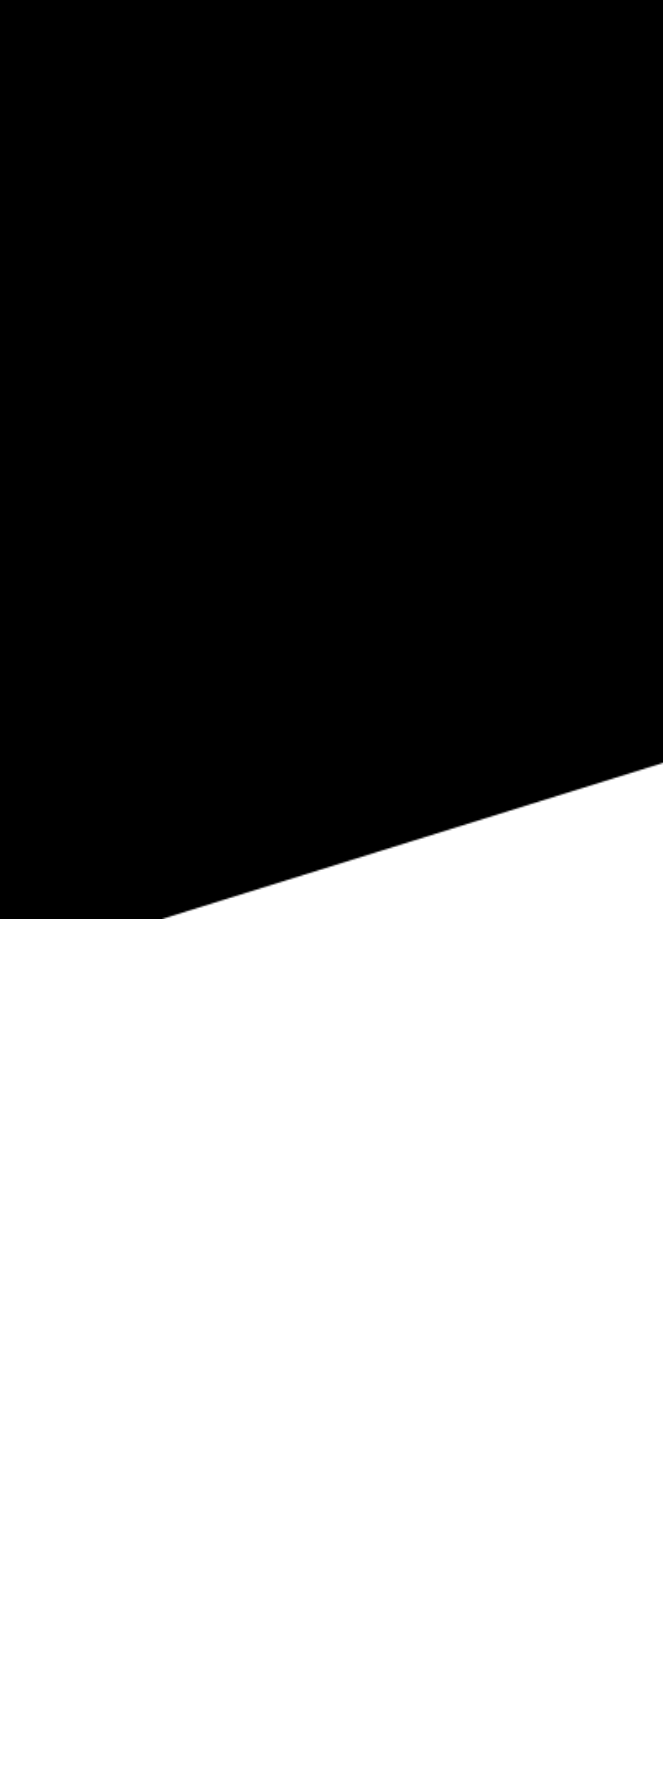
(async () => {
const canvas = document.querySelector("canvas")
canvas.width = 663
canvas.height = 1765
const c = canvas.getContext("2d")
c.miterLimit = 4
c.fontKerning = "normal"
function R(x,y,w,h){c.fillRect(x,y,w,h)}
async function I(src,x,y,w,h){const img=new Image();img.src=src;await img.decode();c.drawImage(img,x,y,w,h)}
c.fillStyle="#fff"
R(0,0,663,1765)
c.fillStyle="#000"
R(0,0,663,919)
await I("1.png",162,762,501,157)
})()
